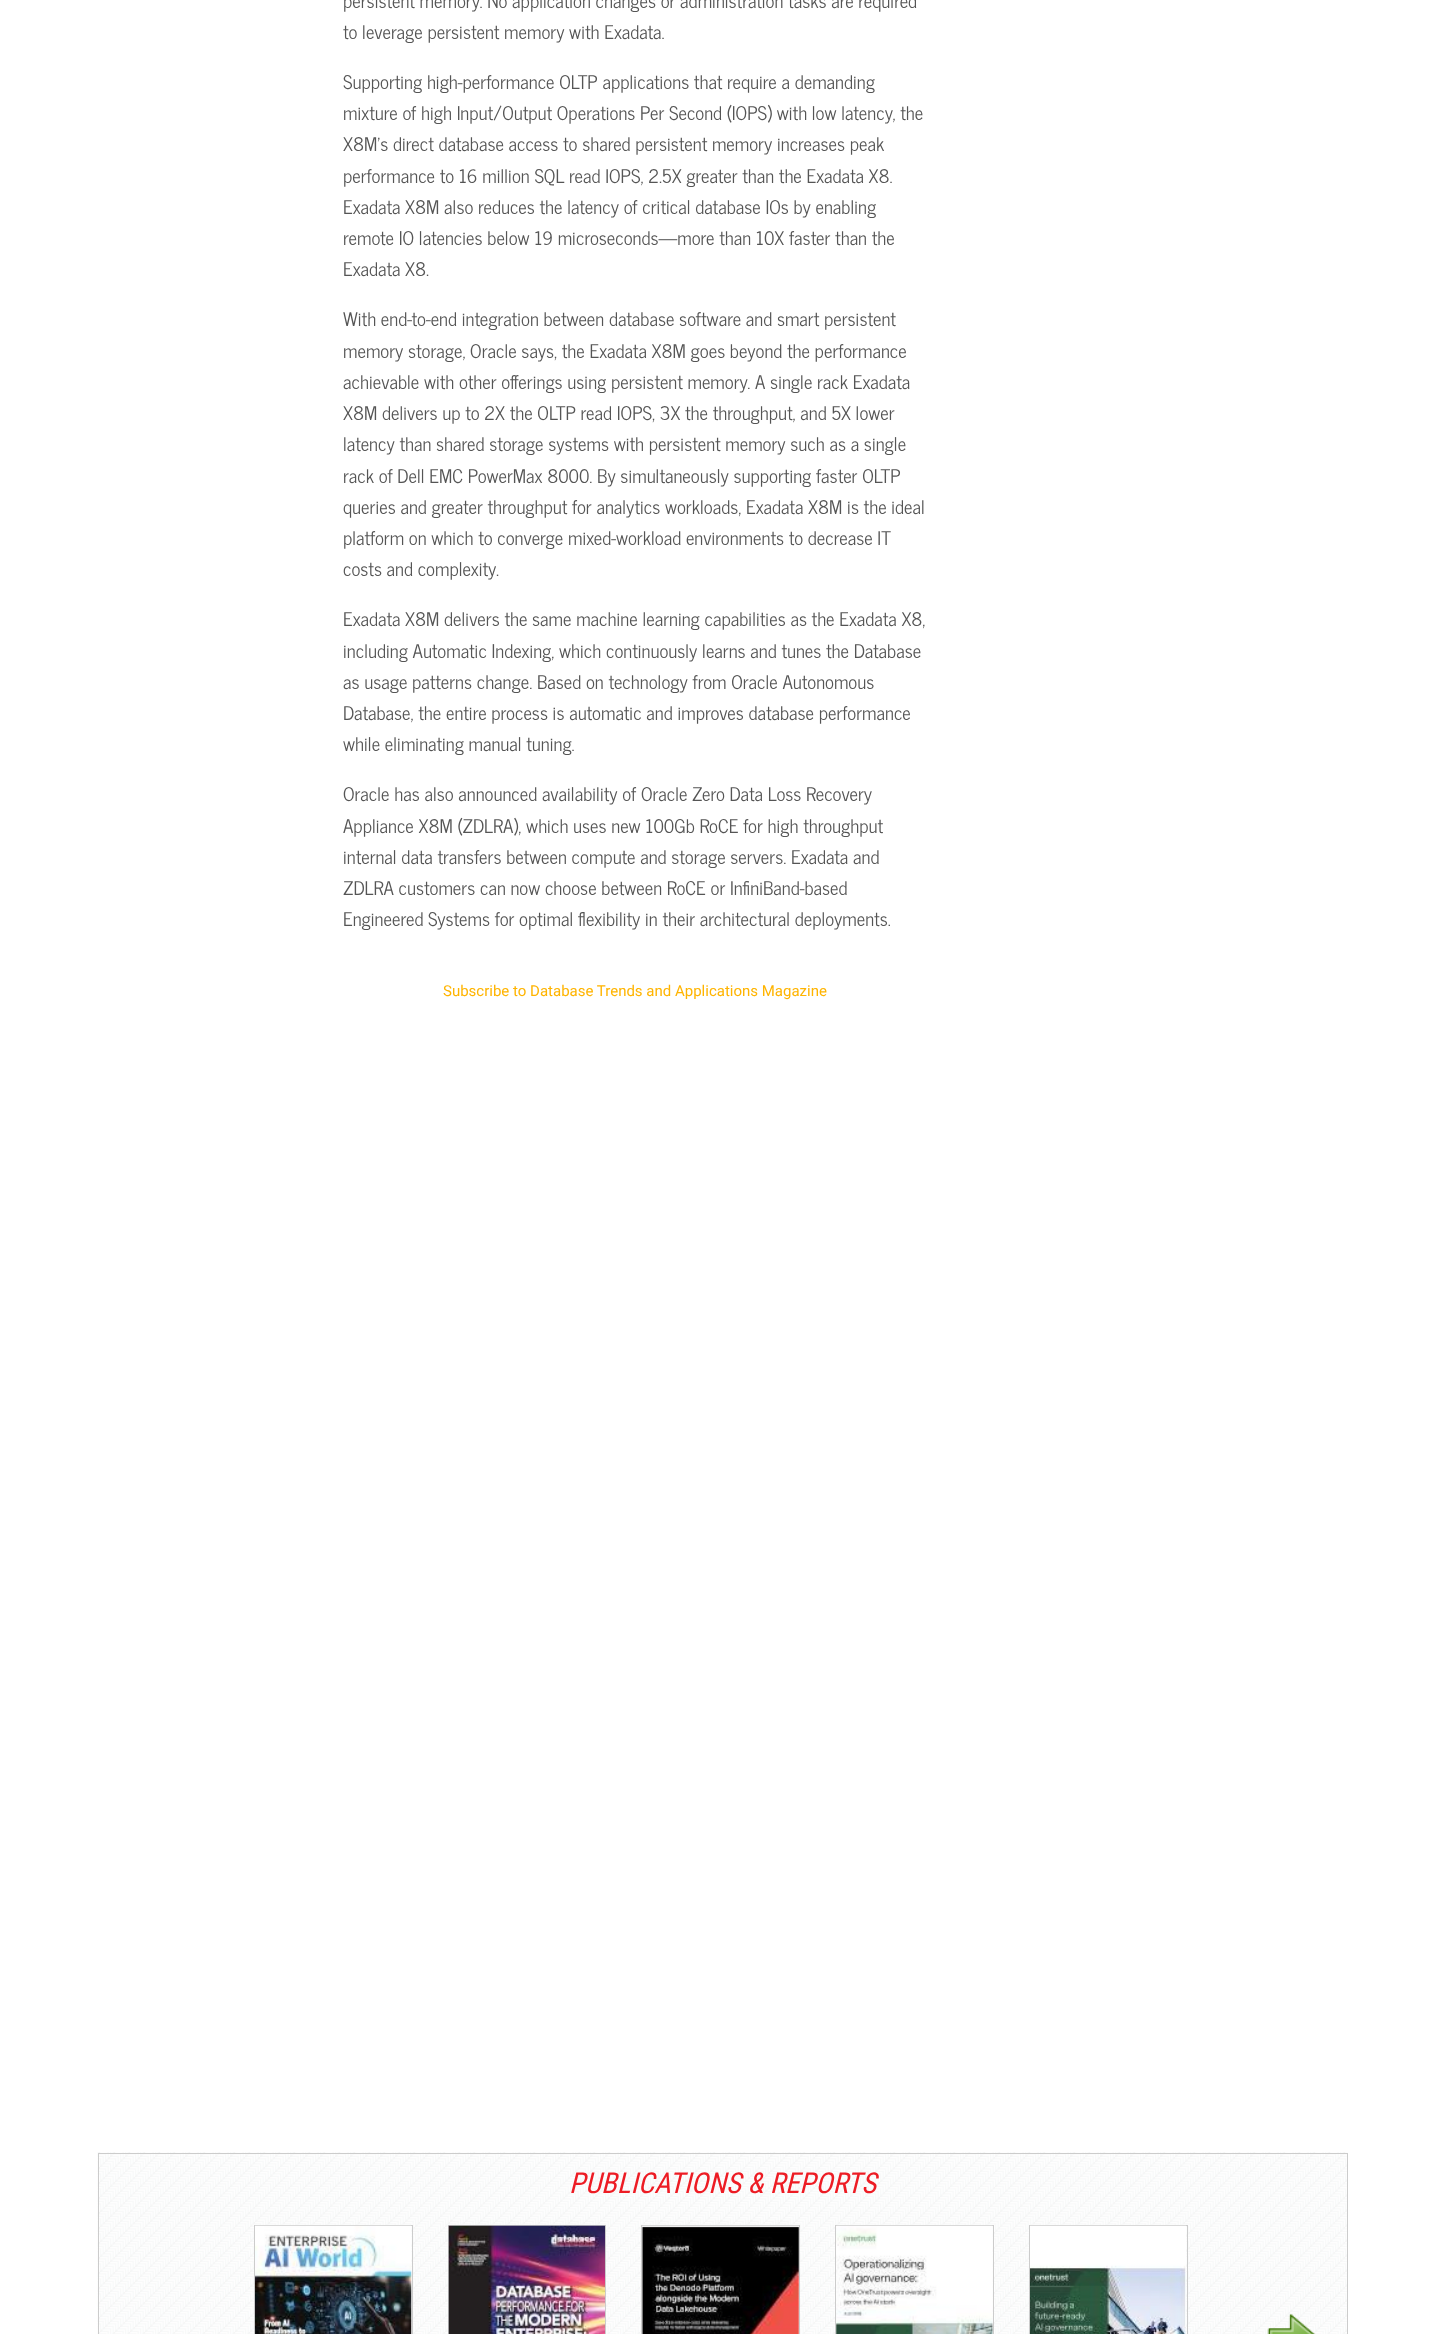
(async () => {
const canvas = document.querySelector("canvas")
canvas.width = 1444
canvas.height = 2334
const c = canvas.getContext("2d")
c.miterLimit = 4
c.fontKerning = "normal"
function T(s,x,y){c.fillText(s,x,y)}
function R(x,y,w,h){c.fillRect(x,y,w,h)}
async function I(src,x,y,w,h){const img=new Image();img.src=src;await img.decode();c.drawImage(img,x,y,w,h)}
c.fillStyle="#fff"
R(0,0,1444,2334)
c.font="18.75px News Cycle"
c.fillStyle="#555"
T("persistent memory. No application changes or administration tasks are required",343,8)
T("to leverage persistent memory with Exadata.",343,39)
T("Supporting high-performance OLTP applications that require a demanding",343,89)
T("mixture of high Input/Output Operations Per Second (IOPS) with low latency, the",343,120)
T("X8M's direct database access to shared persistent memory increases peak",343,151)
T("performance to 16 million SQL read IOPS, 2.5X greater than the Exadata X8.",343,183)
T("Exadata X8M also reduces the latency of critical database IOs by enabling",343,214)
T("remote IO latencies below 19 microseconds—more than 10X faster than the",343,245)
T("Exadata X8.",343,276)
T("With end-to-end integration between database software and smart persistent",343,326)
T("memory storage, Oracle says, the Exadata X8M goes beyond the performance",343,358)
T("achievable with other offerings using persistent memory. A single rack Exadata",343,389)
T("X8M delivers up to 2X the OLTP read IOPS, 3X the throughput, and 5X lower",343,420)
T("latency than shared storage systems with persistent memory such as a single",343,451)
T("rack of Dell EMC PowerMax 8000. By simultaneously supporting faster OLTP",343,483)
T("queries and greater throughput for analytics workloads, Exadata X8M is the ideal",343,514)
T("platform on which to converge mixed-workload environments to decrease IT",343,545)
T("costs and complexity.",343,576)
T("Exadata X8M delivers the same machine learning capabilities as the Exadata X8,",343,626)
T("including Automatic Indexing, which continuously learns and tunes the Database",343,658)
T("as usage patterns change. Based on technology from Oracle Autonomous",343,689)
T("Database, the entire process is automatic and improves database performance",343,720)
T("while eliminating manual tuning.",343,751)
T("Oracle has also announced availability of Oracle Zero Data Loss Recovery",343,801)
T("Appliance X8M (ZDLRA), which uses new 100Gb RoCE for high throughput",343,833)
T("internal data transfers between compute and storage servers. Exadata and",343,864)
T("ZDLRA customers can now choose between RoCE or InfiniBand-based",343,895)
T("Engineered Systems for optimal flexibility in their architectural deployments.",343,926)
c.font="15px Roboto"
c.fillStyle="#ffb400"
T("Subscribe to Database Trends and Applications Magazine",443,996)
await I("1.png",97,2152,1251,182)
c.strokeStyle="#ccc"
c.strokeRect(98.5,2153.5,1249,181)
c.font="italic 28.75px Roboto Condensed"
c.fillStyle="#ed1c24"
T("PUBLICATIONS & REPORTS",569,2193)
c.strokeRect(254.5,2225.5,158,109)
await I("2.png",255,2225,157,109)
c.strokeRect(448.5,2225.5,157,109)
await I("3.png",448,2225,157,109)
c.fillStyle="#eee"
R(642,2226,1,108)
c.strokeRect(641.5,2225.5,158,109)
await I("4.png",642,2225,157,109)
c.strokeRect(835.5,2225.5,158,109)
await I("5.png",836,2225,157,109)
c.strokeRect(1029.5,2225.5,158,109)
await I("6.png",1030,2225,156,109)
await I("7.png",1267,2313,49,21)
})()
